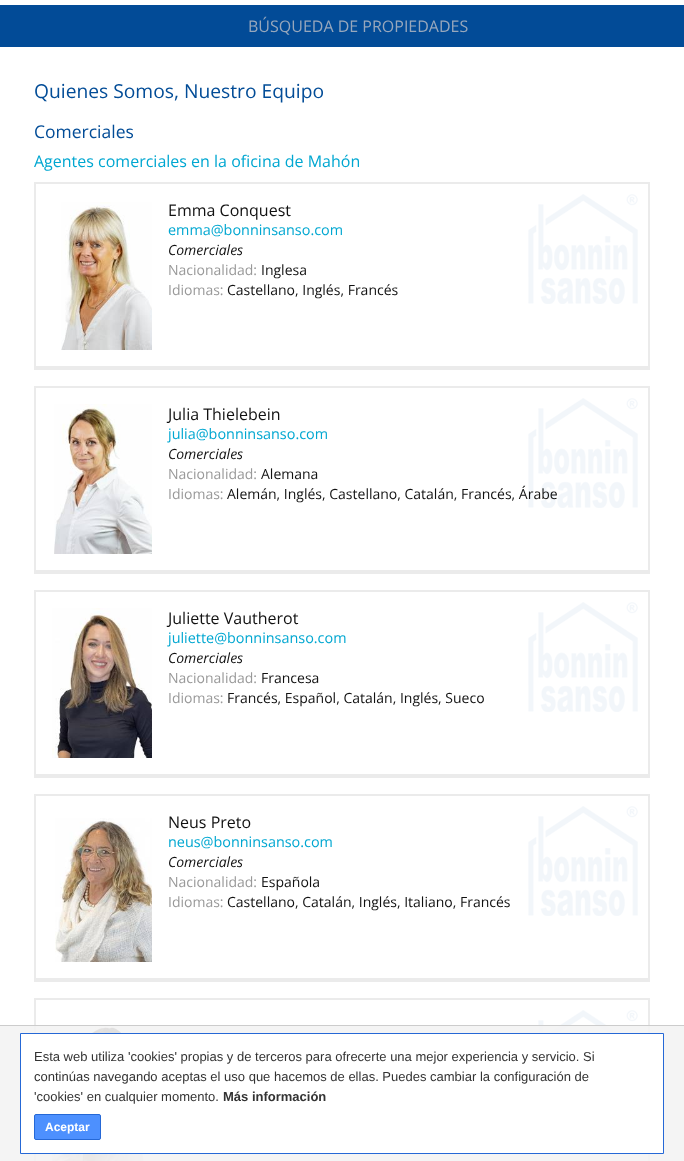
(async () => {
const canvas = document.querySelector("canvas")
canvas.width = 684
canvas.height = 1161
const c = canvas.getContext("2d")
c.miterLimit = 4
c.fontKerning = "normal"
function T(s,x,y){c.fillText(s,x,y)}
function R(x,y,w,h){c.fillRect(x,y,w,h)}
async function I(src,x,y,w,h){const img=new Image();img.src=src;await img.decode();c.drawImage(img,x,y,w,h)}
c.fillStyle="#fff"
R(0,0,684,1161)
c.fillStyle="#024b97"
R(0,5,684,42)
c.font="16px Open Sans"
c.fillStyle="#97a7bc"
T("BÚSQUEDA DE PROPIEDADES",248,32)
c.font="19.25px Open Sans"
c.fillStyle="#024c97"
T("Quienes Somos, Nuestro Equipo",34,98)
c.font="17.5px Open Sans"
T("Comerciales",34,138)
c.font="16px Open Sans"
c.fillStyle="#00a7d1"
T("Agentes comerciales en la oficina de Mahón",34,167)
await I("1.png",528,194,110,110)
c.fillStyle="#ebebeb"
R(34,182,616,2)
R(648,182,2,188)
R(34,366,616,4)
R(34,182,2,188)
await I("2.png",61,202,91,148)
c.fillStyle="#111"
T("Emma Conquest",168,216)
c.font="14.4px Open Sans"
c.fillStyle="#00a7d1"
T("emma@bonninsanso.com",168,235)
c.font="italic 14px Open Sans"
c.fillStyle="#111"
T("Comerciales",168,255)
c.font="14px Open Sans"
c.fillStyle="#999"
T("Nacionalidad:",168,275)
c.fillStyle="#111"
T("Inglesa",261,275)
c.fillStyle="#999"
T("Idiomas:",168,295)
c.fillStyle="#111"
T("Castellano, Inglés, Francés",227,295)
await I("1.png",528,398,110,110)
c.fillStyle="#ebebeb"
R(34,386,616,2)
R(648,386,2,188)
R(34,570,616,4)
R(34,386,2,188)
await I("3.png",54,404,98,150)
c.font="16px Open Sans"
c.fillStyle="#111"
T("Julia Thielebein",168,420)
c.font="14.4px Open Sans"
c.fillStyle="#00a7d1"
T("julia@bonninsanso.com",168,439)
c.font="italic 14px Open Sans"
c.fillStyle="#111"
T("Comerciales",168,459)
c.font="14px Open Sans"
c.fillStyle="#999"
T("Nacionalidad:",168,479)
c.fillStyle="#111"
T("Alemana",261,479)
c.fillStyle="#999"
T("Idiomas:",168,499)
c.fillStyle="#111"
T("Alemán, Inglés, Castellano, Catalán, Francés, Árabe",227,499)
await I("1.png",528,602,110,110)
c.fillStyle="#ebebeb"
R(34,590,616,2)
R(648,590,2,188)
R(34,774,616,4)
R(34,590,2,188)
await I("4.png",52,608,100,150)
c.font="16px Open Sans"
c.fillStyle="#111"
T("Juliette Vautherot",168,624)
c.font="14.4px Open Sans"
c.fillStyle="#00a7d1"
T("juliette@bonninsanso.com",168,643)
c.font="italic 14px Open Sans"
c.fillStyle="#111"
T("Comerciales",168,663)
c.font="14px Open Sans"
c.fillStyle="#999"
T("Nacionalidad:",168,683)
c.fillStyle="#111"
T("Francesa",261,683)
c.fillStyle="#999"
T("Idiomas:",168,703)
c.fillStyle="#111"
T("Francés, Español, Catalán, Inglés, Sueco",227,703)
await I("1.png",528,806,110,110)
c.fillStyle="#ebebeb"
R(34,794,616,2)
R(648,794,2,188)
R(34,978,616,4)
R(34,794,2,188)
await I("5.png",55,818,97,144)
c.font="16px Open Sans"
c.fillStyle="#111"
T("Neus Preto",168,828)
c.font="14.4px Open Sans"
c.fillStyle="#00a7d1"
T("neus@bonninsanso.com",168,847)
c.font="italic 14px Open Sans"
c.fillStyle="#111"
T("Comerciales",168,867)
c.font="14px Open Sans"
c.fillStyle="#999"
T("Nacionalidad:",168,887)
c.fillStyle="#111"
T("Española",261,887)
c.fillStyle="#999"
T("Idiomas:",168,907)
c.fillStyle="#111"
T("Castellano, Catalán, Inglés, Italiano, Francés",227,907)
await I("6.png",528,1010,110,23)
c.fillStyle="#ebebeb"
R(34,998,616,2)
R(648,998,2,163)
R(34,998,2,163)
await I("7.png",52,1026,93,135)
c.fillStyle="#f3f3f3e6"
R(0,1026,684,135)
c.fillStyle="#ccc"
R(0,1025,684,1)
c.fillStyle="#fff"
c.beginPath()
c.rect(20.5,1033.5,643,120)
c.fill()
c.strokeStyle="#2568d6"
c.stroke()
c.font="13px Liberation Sans"
c.fillStyle="#333"
T("Esta web utiliza 'cookies' propias y de terceros para ofrecerte una mejor experiencia y servicio. Si",34,1061)
T("continúas navegando aceptas el uso que hacemos de ellas. Puedes cambiar la configuración de",34,1081)
T("'cookies' en cualquier momento.",34,1101)
c.font="bold 13px Liberation Sans"
T("Más información",223,1101)
c.fillStyle="#4d90fe"
c.beginPath()
c.roundRect(34.5,1114.5,66,25,1.5)
c.fill()
c.stroke()
c.font="bold 12px Liberation Sans"
c.fillStyle="#fff"
T("Aceptar",45,1131)
})()
